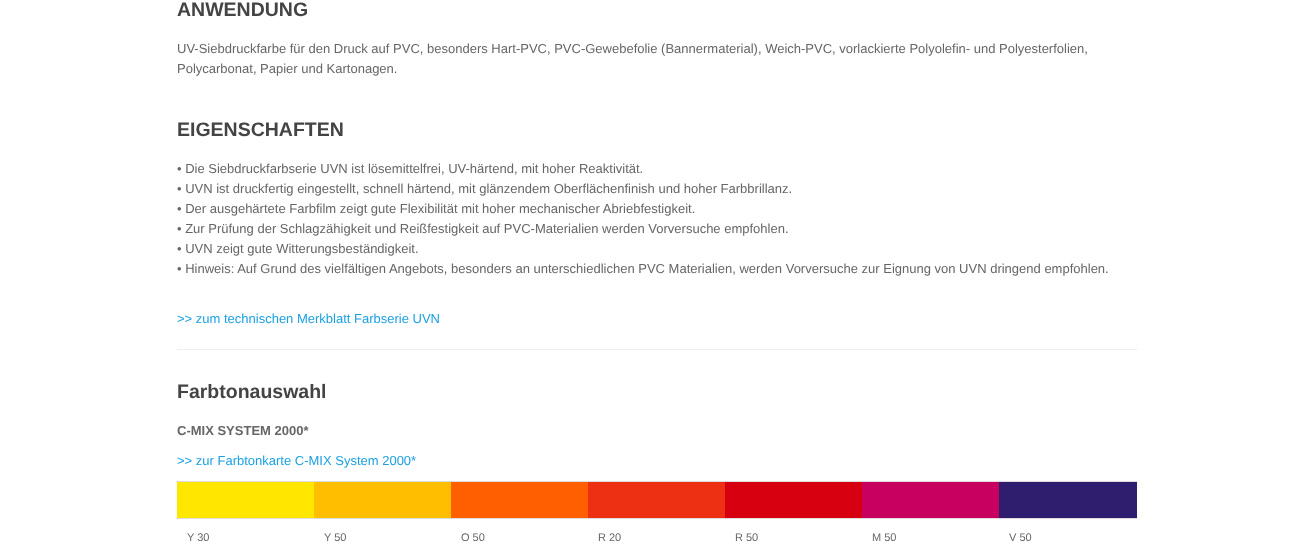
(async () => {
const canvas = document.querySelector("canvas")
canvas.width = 1313
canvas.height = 554
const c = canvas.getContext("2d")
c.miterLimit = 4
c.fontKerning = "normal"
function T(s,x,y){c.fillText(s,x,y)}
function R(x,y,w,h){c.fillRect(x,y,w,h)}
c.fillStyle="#fff"
R(0,0,1313,554)
c.font="bold 19.5px Liberation Sans"
c.fillStyle="#444"
T("ANWENDUNG",177,16)
c.font="13px Liberation Sans"
c.fillStyle="#666"
T("UV-Siebdruckfarbe für den Druck auf PVC, besonders Hart-PVC, PVC-Gewebefolie (Bannermaterial), Weich-PVC, vorlackierte Polyolefin- und Polyesterfolien,",177,53)
T("Polycarbonat, Papier und Kartonagen.",177,73)
c.font="bold 19.5px Liberation Sans"
c.fillStyle="#444"
T("EIGENSCHAFTEN",177,136)
c.font="13px Liberation Sans"
c.fillStyle="#666"
T("• Die Siebdruckfarbserie UVN ist lösemittelfrei, UV-härtend, mit hoher Reaktivität.",177,173)
T("• UVN ist druckfertig eingestellt, schnell härtend, mit glänzendem Oberflächenfinish und hoher Farbbrillanz.",177,193)
T("• Der ausgehärtete Farbfilm zeigt gute Flexibilität mit hoher mechanischer Abriebfestigkeit.",177,213)
T("• Zur Prüfung der Schlagzähigkeit und Reißfestigkeit auf PVC-Materialien werden Vorversuche empfohlen.",177,233)
T("• UVN zeigt gute Witterungsbeständigkeit.",177,253)
T("• Hinweis: Auf Grund des vielfältigen Angebots, besonders an unterschiedlichen PVC Materialien, werden Vorversuche zur Eignung von UVN dringend empfohlen.",177,273)
c.fillStyle="#1ba1e2"
T(">> zum technischen Merkblatt Farbserie UVN",177,323)
c.fillStyle="#eee"
R(177,349,960,1)
c.font="bold 19.5px Liberation Sans"
c.fillStyle="#444"
T("Farbtonauswahl",177,398)
c.font="bold 13px Liberation Sans"
c.fillStyle="#666"
T("C-MIX SYSTEM 2000*",177,435)
c.font="13px Liberation Sans"
c.fillStyle="#1ba1e2"
T(">> zur Farbtonkarte C-MIX System 2000*",177,465)
c.fillStyle="#2f1d6e"
R(999,482,138,36)
c.fillStyle="#ddd"
R(176,481,961,1)
c.fillStyle="#ffe700"
R(177,482,137,36)
c.fillStyle="#ffbf00"
R(314,482,137,36)
c.fillStyle="#ff5f00"
R(451,482,137,36)
c.fillStyle="#ed2f13"
R(588,482,137,36)
c.fillStyle="#d70010"
R(725,482,137,36)
c.fillStyle="#c8005e"
R(862,482,137,36)
c.font="11px Liberation Sans"
c.fillStyle="#666"
T("Y 30",187,541)
T("Y 50",324,541)
T("O 50",461,541)
T("R 20",598,541)
T("R 50",735,541)
T("M 50",872,541)
c.fillStyle="#ddd"
R(176,518,961,1)
c.fillStyle="#666"
T("V 50",1009,541)
})()
